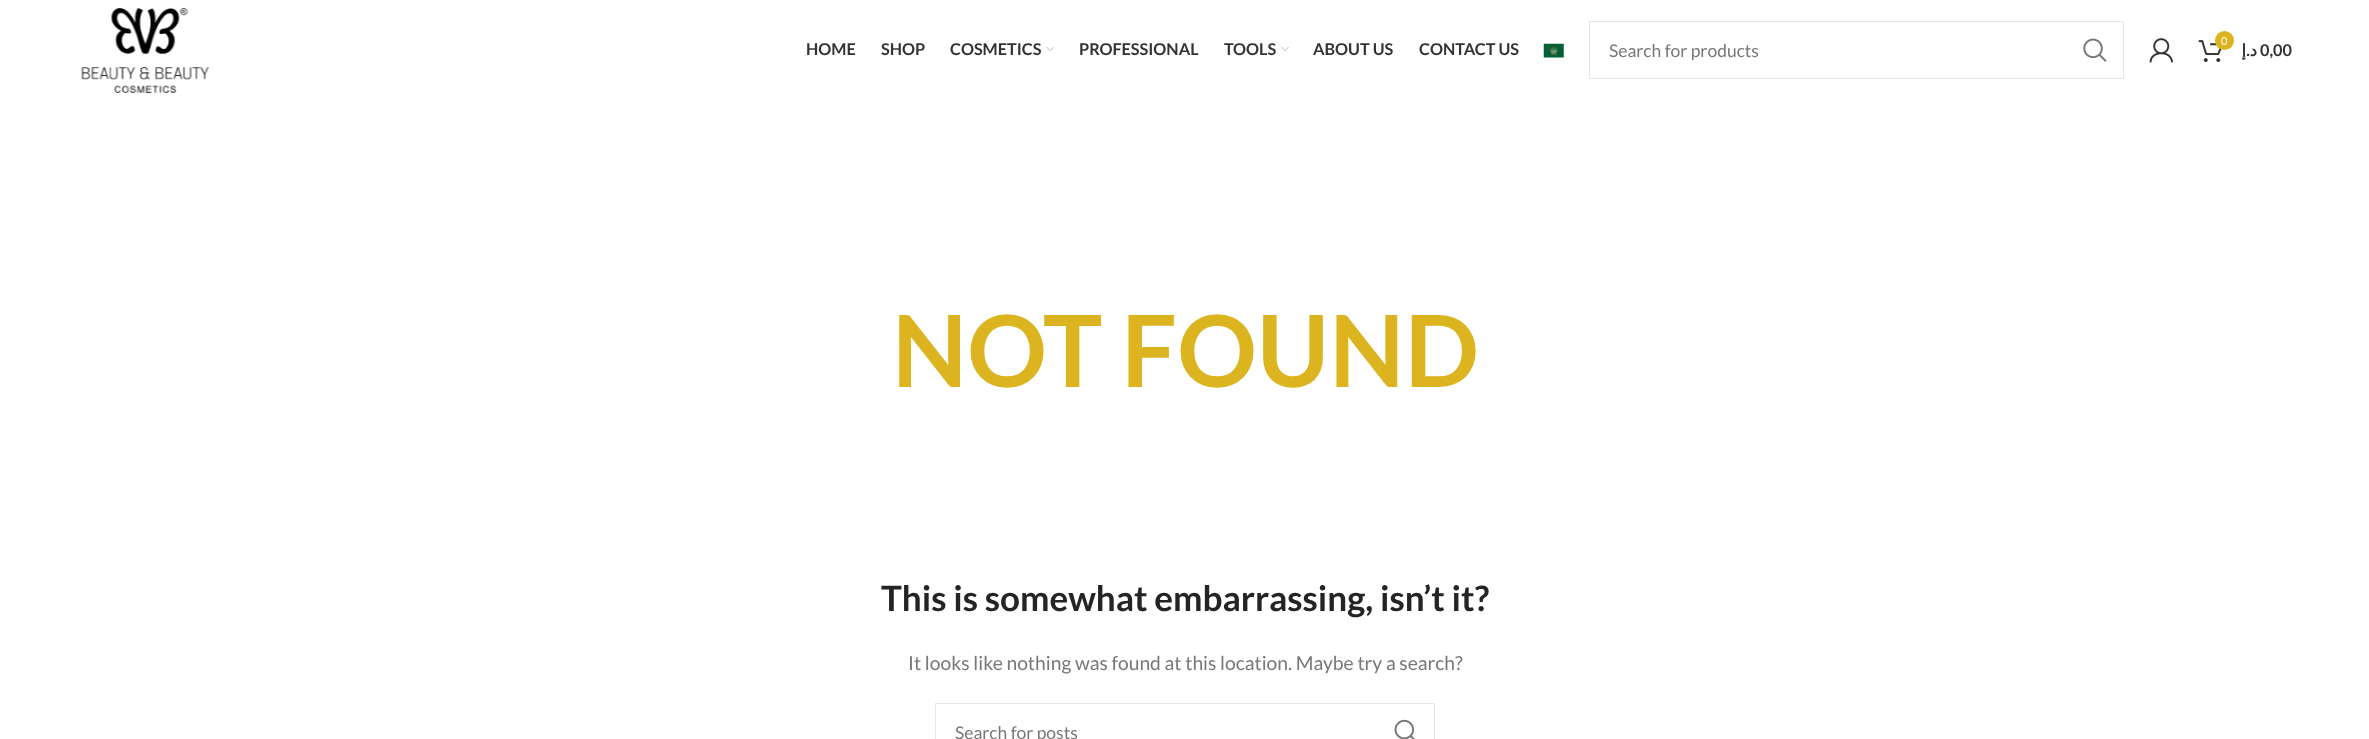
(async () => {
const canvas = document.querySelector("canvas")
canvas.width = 2369
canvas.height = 739
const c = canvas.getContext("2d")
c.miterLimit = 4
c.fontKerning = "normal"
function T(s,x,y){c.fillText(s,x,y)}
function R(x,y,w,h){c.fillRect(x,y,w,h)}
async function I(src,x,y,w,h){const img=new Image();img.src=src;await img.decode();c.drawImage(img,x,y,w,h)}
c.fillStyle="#fff"
R(0,0,2369,739)
await I("1.png",81,8,129,85)
c.font="bold 16.25px Lato"
c.fillStyle="#333"
T("HOME",806,55)
T("SHOP",881,55)
T("COSMETICS",950,55)
await I("2.png",1046,47,8,4)
T("PROFESSIONAL",1079,55)
T("TOOLS",1224,55)
await I("2.png",1281,47,8,4)
T("ABOUT US",1313,55)
T("CONTACT US",1419,55)
await I("3.png",1543,43,21,15)
c.strokeStyle="#e6e6e6"
c.strokeRect(1589.5,21.5,534,57)
c.font="17.5px Lato"
c.fillStyle="#777"
T("Search for products",1609,57)
await I("4.png",2083,38,24,24)
await I("5.png",2149,38,24,25)
await I("6.png",2198,40,24,22)
c.fillStyle="#dbb420"
c.beginPath()
c.arc(2224.5,40.5,9.5,0,7)
c.fill()
c.font="11px Lato"
c.fillStyle="#fff"
T("0",2221,45)
c.direction="rtl"
c.font="bold 16.25px DejaVu Sans"
c.fillStyle="#333"
T("إ",2246,56)
c.font="bold 16.25px Lato"
T(".",2250,56)
c.font="bold 16.25px DejaVu Sans"
T("د",2257,56)
c.direction="ltr"
c.font="bold 16.25px Lato"
T("0,00",2260,56)
c.font="bold 99.5px Lato"
c.fillStyle="#dbb420"
T("NOT FOUND",892,387)
c.font="bold 35px Lato"
c.fillStyle="#242424"
T("This is somewhat embarrassing, isn’t it?",881,611)
c.font="19.25px Lato"
c.fillStyle="#777"
T("It looks like nothing was found at this location. Maybe try a search?",908,670)
c.strokeRect(935.5,703.5,499,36)
c.font="17.5px Lato"
T("Search for posts",955,739)
await I("7.png",1394,719,21,20)
})()
